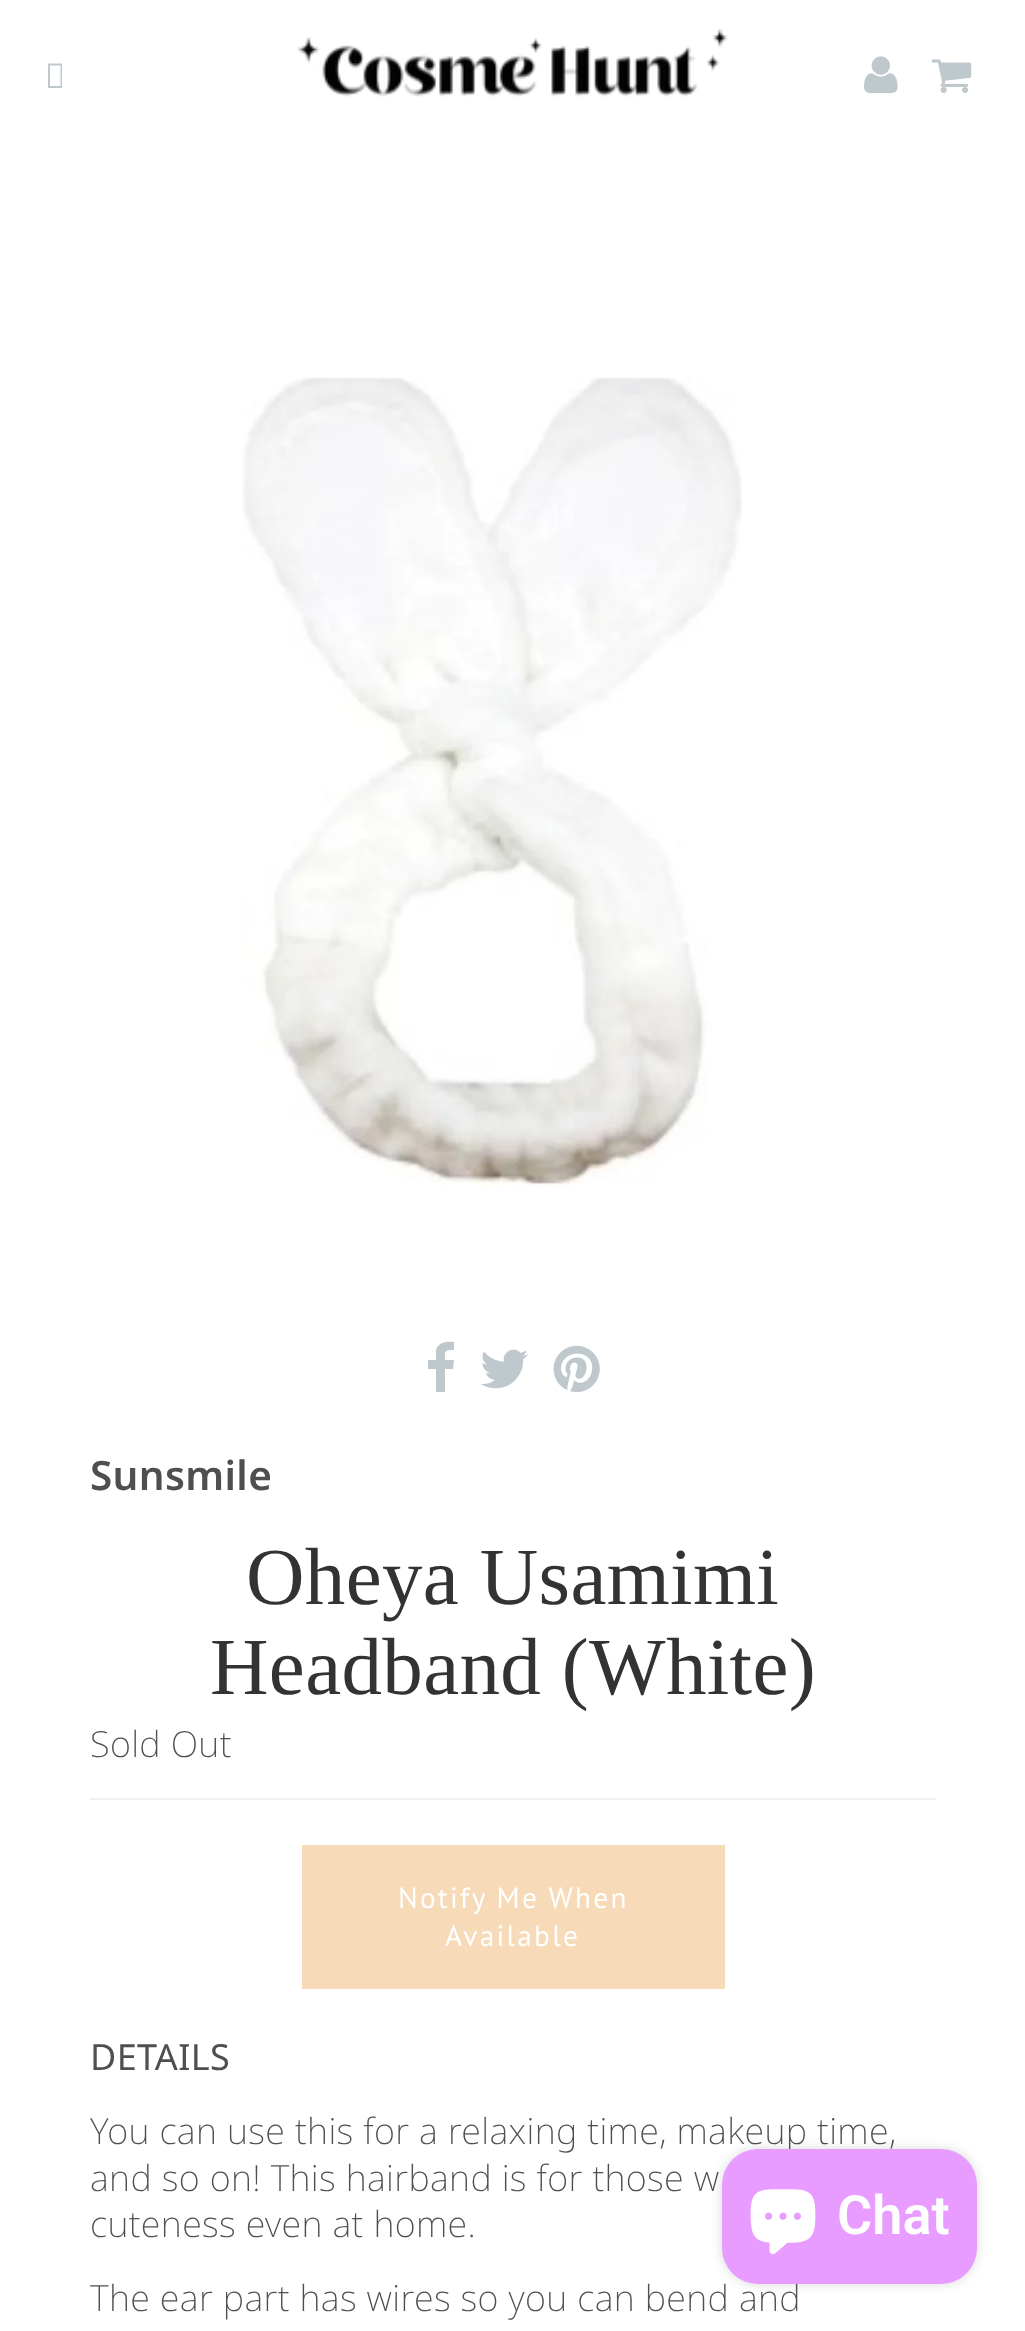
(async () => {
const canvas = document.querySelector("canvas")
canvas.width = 1025
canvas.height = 2331
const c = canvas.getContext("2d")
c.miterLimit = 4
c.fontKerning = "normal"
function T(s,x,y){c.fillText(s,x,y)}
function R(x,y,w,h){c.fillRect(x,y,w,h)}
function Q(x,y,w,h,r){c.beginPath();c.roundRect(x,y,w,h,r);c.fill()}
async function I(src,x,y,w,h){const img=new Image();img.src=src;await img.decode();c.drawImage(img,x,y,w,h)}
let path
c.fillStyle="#fff"
R(0,0,1025,2331)
c.fillStyle="#bec8cd"
path = new Path2D("M48 88v-24.5h14v24.5zm2-2h10.5v-20.5h-10.5z")
c.fill(path)
await I("1.png",297,28,431,69)
await I("2.png",864,56,34,38)
await I("3.png",931,59,41,34)
await I("4.png",242,377,500,810)
path = new Path2D("M454 1342v8c-10 0-9 1-9 10h9l-1 9h-8v23h-9v-23h-8v-9h8v-9c1-9 11-10 18-9z")
c.fill(path)
await I("5.png",481,1349,47,40)
await I("6.png",553,1345,47,48)
c.letterSpacing="0.35px"
c.font="600 40.5px Noto Sans"
c.fillStyle="#4f4f4f"
T("Sunsmile",90,1490)
c.font="81px Liberation Serif"
c.fillStyle="#333"
T("Oheya Usamimi",246,1604)
T("Headband (White)",210,1694)
c.font="200 36px Noto Sans"
c.fillStyle="#4f4f4f"
T("Sold Out",90,1757)
c.fillStyle="#f0f0f0"
R(90,1798,846,2)
c.fillStyle="#f7dab8"
R(302,1845,423,144)
c.letterSpacing="2.25px"
c.font="29.25px PT Sans"
c.fillStyle="#fff"
T("Notify Me When",398,1908)
T("Available",445,1946)
c.letterSpacing="0.35px"
c.font="36px Noto Sans"
c.fillStyle="#4f4f4f"
T("DETAILS",90,2070)
c.font="200 36px Noto Sans"
T("You can use this for a relaxing time, makeup time,",90,2144)
T("and so on! This hairband is for those w",90,2191)
T("cuteness even at home.",90,2237)
T("The ear part has wires so you can bend and",90,2311)
c.fillStyle="#00000026"
c.filter="blur(5.5px)"
c.beginPath()
c.roundRect(722,2149,255,135,36)
c.fill()
c.filter="none"
c.fillStyle="#e99cff"
Q(722,2149,255,135,36)
await I("7.png",750,2189,66,65)
c.letterSpacing="0px"
c.font="600 54px Roboto"
c.fillStyle="#fff"
T("Chat",837,2234)
})()
